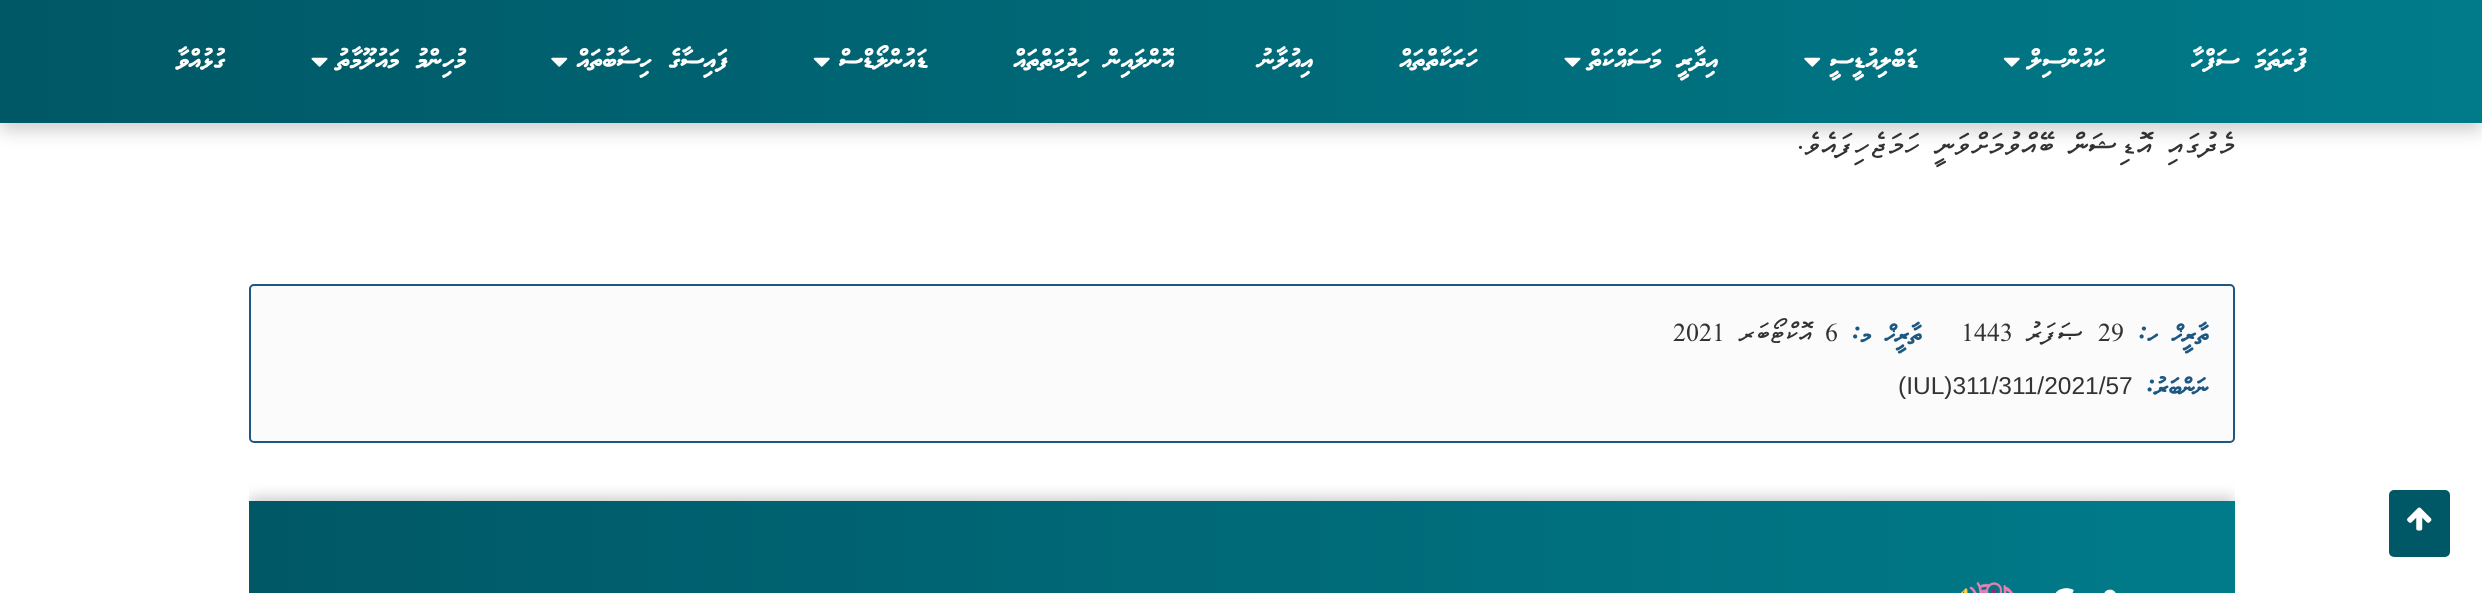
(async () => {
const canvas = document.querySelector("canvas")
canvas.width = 2482
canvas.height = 593
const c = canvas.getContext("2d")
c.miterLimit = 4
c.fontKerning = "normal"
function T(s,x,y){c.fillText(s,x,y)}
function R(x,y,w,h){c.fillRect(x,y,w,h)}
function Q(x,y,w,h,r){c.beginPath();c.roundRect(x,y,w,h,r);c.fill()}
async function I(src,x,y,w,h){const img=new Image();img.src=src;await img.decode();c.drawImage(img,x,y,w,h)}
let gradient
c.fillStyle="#fff"
R(0,0,2482,593)
c.fillStyle="#00000033"
c.filter="blur(9px)"
c.beginPath()
c.rect(0,7,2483,123)
c.fill()
c.filter="none"
gradient = c.createLinearGradient(0,61,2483,61)
gradient.addColorStop(0,"#005866")
gradient.addColorStop(1,"#007b8a")
c.fillStyle = gradient
R(0,0,2482,123)
c.direction="rtl"
c.font="28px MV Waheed"
c.fillStyle="#fff"
T("ފުރަތަމަ ސަފްހާ",2307,67)
T("ކައުންސިލް",2105,67)
await I("1.png",2003,57,17,10)
T("ޑަބްލިއުޑީސީ",1918,67)
await I("2.png",1804,57,17,10)
T("އިދާރީ މަސައްކަތް",1718,67)
await I("3.png",1564,57,17,10)
T("ހަރަކާތްތައް",1478,67)
T("އިއުލާނު",1313,67)
T("އޮންލައިން ހިދުމަތްތައް",1174,67)
T("ޑައުންލޯޑްސް",928,67)
await I("4.png",813,57,17,10)
T("ފައިސާގެ ހިސާބުތައް",728,67)
await I("5.png",551,57,17,10)
T("މުހިންމު މައުލޫމާތު",466,67)
await I("6.png",311,57,17,10)
T("ގުޅުއްވާ",225,67)
c.font="italic 29.75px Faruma"
c.fillStyle="#333"
T("މެދުގައި އޮޑިޝަން ބޭއްވުމަށްވަނީ ހަމަޖެހިފައެވެ.",2235,154)
c.fillStyle="#fbfbfb"
c.beginPath()
c.roundRect(250,285,1984,157,4)
c.fill()
c.strokeStyle="#1c5882"
c.lineWidth=2
c.stroke()
c.font="26px MV Waheed"
c.fillStyle="#1c5882"
T("ތާރީޚް ހ:",2209,341)
c.direction="ltr"
c.font="italic 26px Faruma"
c.fillStyle="#333"
T("29",2098,341)
c.direction="rtl"
T("ޞަފަރު",2085,341)
c.direction="ltr"
T("1443",1961,341)
c.direction="rtl"
c.font="26px MV Waheed"
c.fillStyle="#1c5882"
T("ތާރީޚް މ:",1922,341)
c.direction="ltr"
c.font="italic 26px Faruma"
c.fillStyle="#333"
T("6",1825,341)
c.direction="rtl"
T("އޮކްޓޯބަރ",1813,341)
c.direction="ltr"
T("2021",1673,341)
c.direction="rtl"
c.font="26px MV Waheed"
c.fillStyle="#1c5882"
T("ނަންބަރު:",2209,394)
c.direction="ltr"
c.font="24.5px Liberation Sans"
c.fillStyle="#333"
T("(IUL)311/311/2021/57",1898,394)
c.save()
c.beginPath()
c.rect(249,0,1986,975)
c.clip()
c.fillStyle="#00000033"
c.filter="blur(7px)"
c.beginPath()
c.rect(249,497,1986,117)
c.fill()
c.filter="none"
c.restore()
gradient = c.createLinearGradient(249,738,2235,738)
gradient.addColorStop(0,"#005866")
gradient.addColorStop(1,"#007b8a")
c.fillStyle = gradient
R(249,501,1986,92)
await I("7.png",1961,581,155,12)
c.fillStyle="#005866"
Q(2389,490,61,67,5)
await I("8.png",2407,507,25,24)
})()
